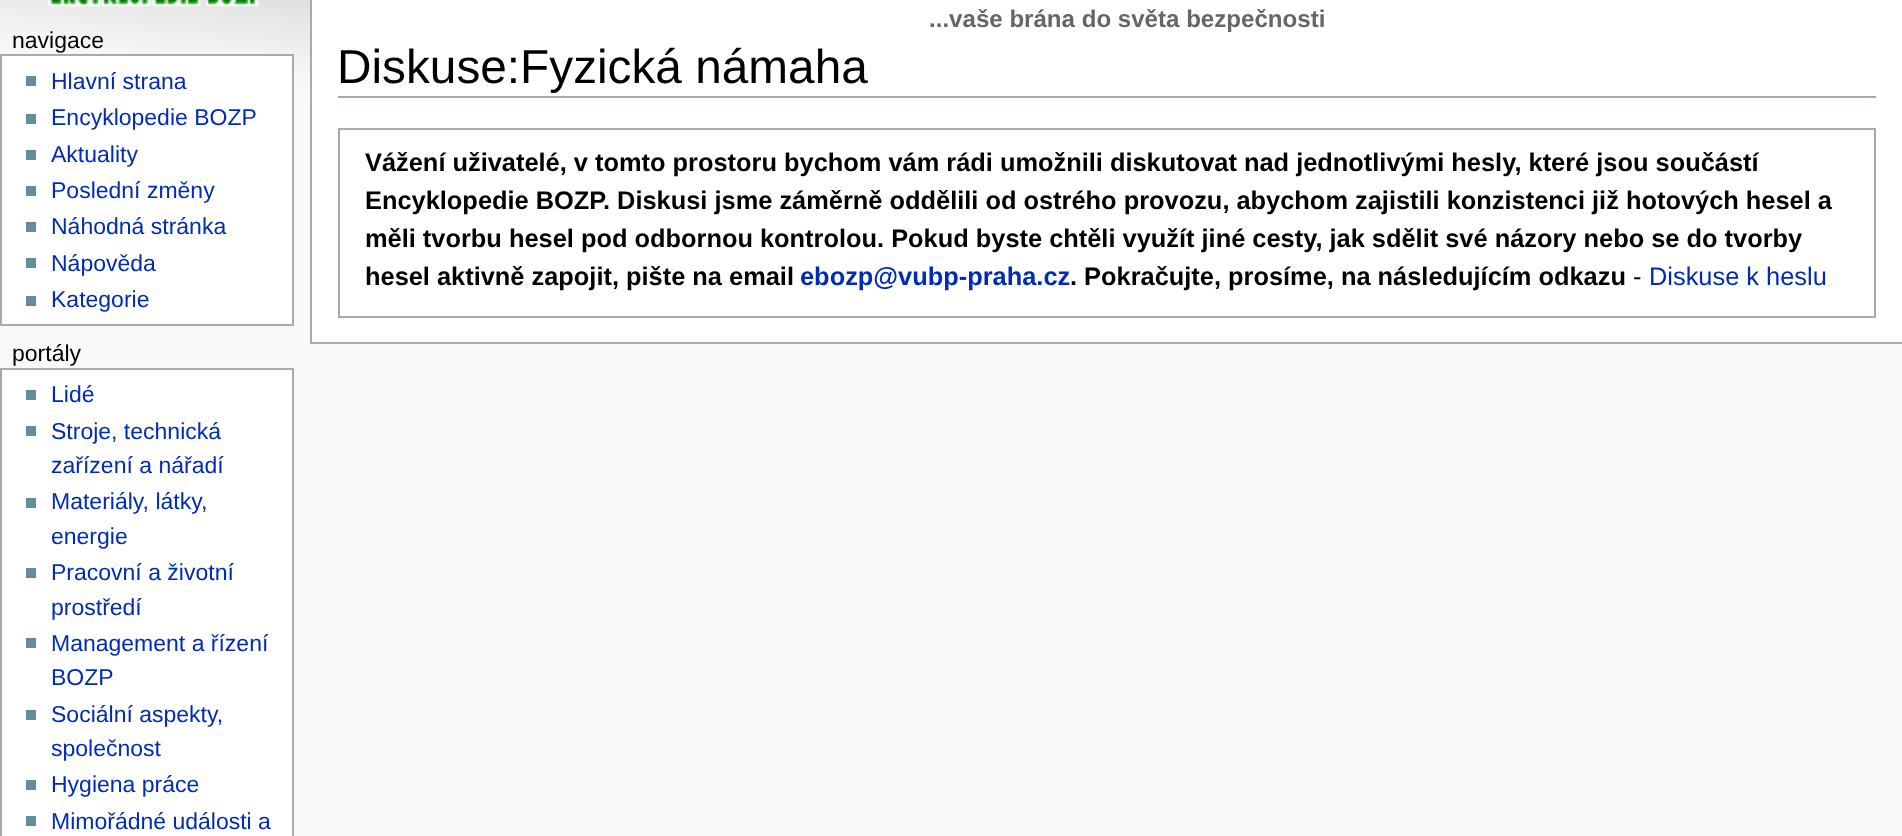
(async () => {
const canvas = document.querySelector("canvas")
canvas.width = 1902
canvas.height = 836
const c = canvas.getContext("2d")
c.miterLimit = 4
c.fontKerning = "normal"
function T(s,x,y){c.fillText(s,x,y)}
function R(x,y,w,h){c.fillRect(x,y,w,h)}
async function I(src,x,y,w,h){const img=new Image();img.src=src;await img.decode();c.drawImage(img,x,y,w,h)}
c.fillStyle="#f9f9f9"
R(0,0,1902,836)
await I("1.png",0,0,310,125)
await I("2.png",47,0,212,7)
c.font="23px Liberation Sans"
c.fillStyle="#000"
T("navigace",12,48)
c.fillStyle="#fff"
c.beginPath()
c.rect(1,55,292,270)
c.fill()
c.strokeStyle="#aaa"
c.lineWidth=2
c.stroke()
c.fillStyle="#638c9c"
R(26,76,10,10)
c.fillStyle="#002bb8"
T("Hlavní strana",51,89)
c.fillStyle="#638c9c"
R(26,114,10,10)
c.fillStyle="#002bb8"
T("Encyklopedie BOZP",51,125)
c.fillStyle="#638c9c"
R(26,150,10,10)
c.fillStyle="#002bb8"
T("Aktuality",51,162)
c.fillStyle="#638c9c"
R(26,186,10,10)
c.fillStyle="#002bb8"
T("Poslední změny",51,198)
c.fillStyle="#638c9c"
R(26,222,10,10)
c.fillStyle="#002bb8"
T("Náhodná stránka",51,234)
c.fillStyle="#638c9c"
R(26,258,10,10)
c.fillStyle="#002bb8"
T("Nápověda",51,271)
c.fillStyle="#638c9c"
R(26,296,10,10)
c.fillStyle="#002bb8"
T("Kategorie",51,307)
c.fillStyle="#000"
T("portály",12,361)
c.fillStyle="#fff"
c.beginPath()
c.rect(1,369,292,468)
c.fill()
c.stroke()
c.fillStyle="#638c9c"
R(26,390,10,10)
c.fillStyle="#002bb8"
T("Lidé",51,402)
c.fillStyle="#638c9c"
R(26,426,10,10)
c.fillStyle="#002bb8"
T("Stroje, technická",51,439)
T("zařízení a nářadí",51,473)
c.fillStyle="#638c9c"
R(26,498,10,10)
c.fillStyle="#002bb8"
T("Materiály, látky,",51,509)
T("energie",51,544)
c.fillStyle="#638c9c"
R(26,568,10,10)
c.fillStyle="#002bb8"
T("Pracovní a životní",51,580)
T("prostředí",51,615)
c.fillStyle="#638c9c"
R(26,638,10,10)
c.fillStyle="#002bb8"
T("Management a řízení",51,651)
T("BOZP",51,685)
c.fillStyle="#638c9c"
R(26,710,10,10)
c.fillStyle="#002bb8"
T("Sociální aspekty,",51,722)
T("společnost",51,756)
c.fillStyle="#638c9c"
R(26,780,10,10)
c.fillStyle="#002bb8"
T("Hygiena práce",51,792)
c.fillStyle="#638c9c"
R(26,816,10,10)
c.fillStyle="#002bb8"
T("Mimořádné události a",51,829)
c.fillStyle="#fff"
R(312,0,1590,342)
c.fillStyle="#aaa"
R(310,342,1592,2)
R(310,0,2,344)
c.font="bold 24.1px Liberation Sans"
c.fillStyle="#666"
T("...vaše brána do světa bezpečnosti",929,27)
c.fillStyle="#a2a9b1"
R(338,96,1538,2)
c.font="47.75px Liberation Sans"
c.fillStyle="#000"
T("Diskuse:Fyzická námaha",337,83)
c.strokeRect(339,129,1536,188)
c.font="bold 25.4px Liberation Sans"
T("Vážení uživatelé, v tomto prostoru bychom vám rádi umožnili diskutovat nad jednotlivými hesly, které jsou součástí",365,171)
T("Encyklopedie BOZP. Diskusi jsme záměrně oddělili od ostrého provozu, abychom zajistili konzistenci již hotových hesel a",365,209)
T("měli tvorbu hesel pod odbornou kontrolou. Pokud byste chtěli využít jiné cesty, jak sdělit své názory nebo se do tvorby",365,247)
T("hesel aktivně zapojit, pište na email",365,285)
c.fillStyle="#002bb8"
T("ebozp@vubp-praha.cz",800,285)
c.fillStyle="#000"
T(". Pokračujte, prosíme, na následujícím odkazu",1070,285)
c.font="25.4px Liberation Sans"
T("-",1633,285)
c.fillStyle="#002bb8"
T("Diskuse k heslu",1649,285)
})()
